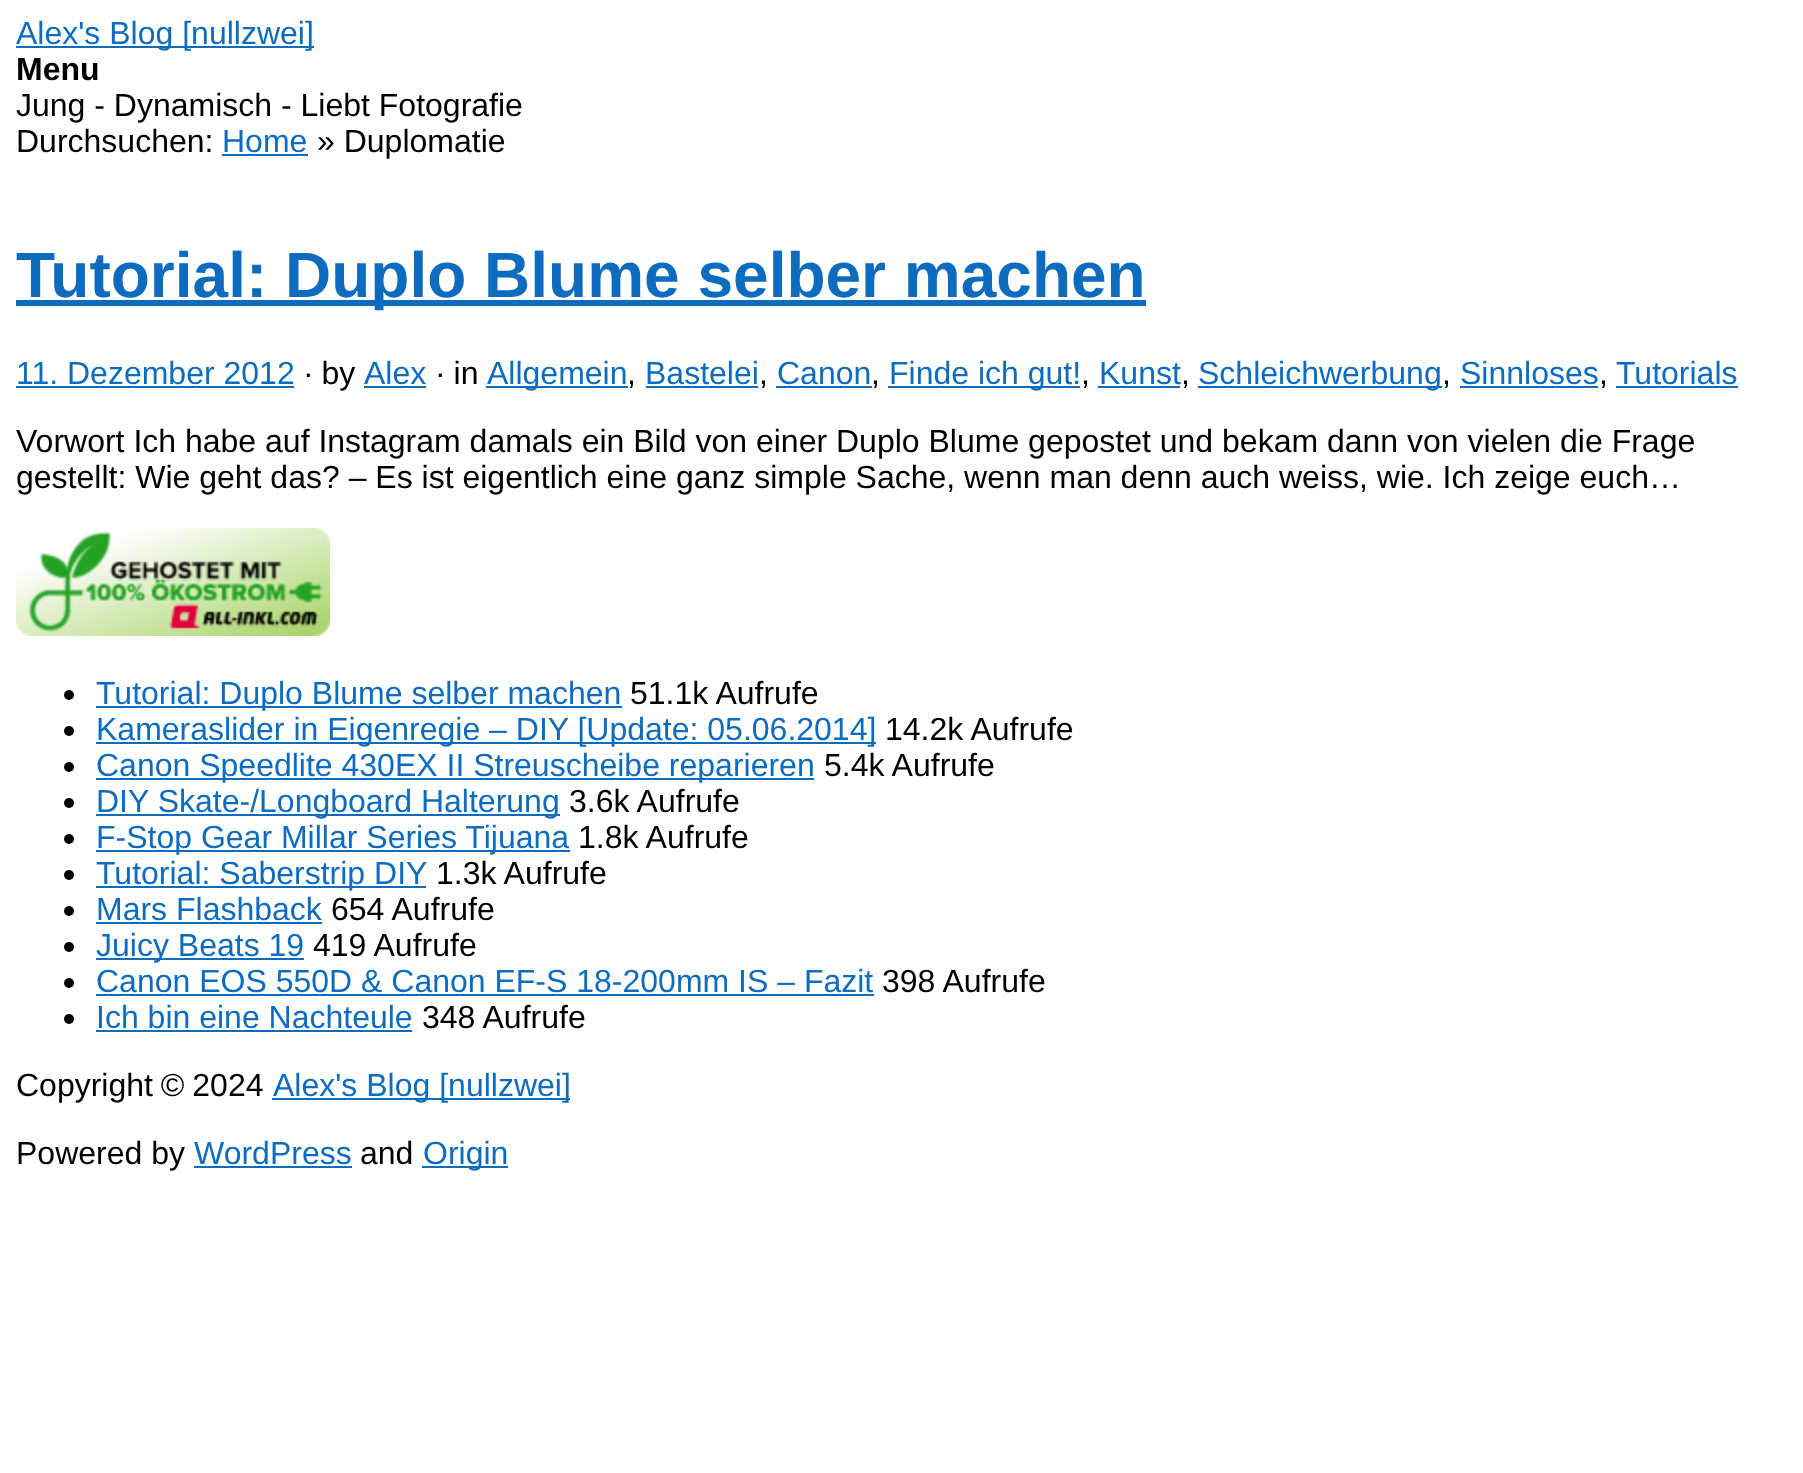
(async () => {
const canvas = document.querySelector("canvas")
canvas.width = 1803
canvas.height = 1473
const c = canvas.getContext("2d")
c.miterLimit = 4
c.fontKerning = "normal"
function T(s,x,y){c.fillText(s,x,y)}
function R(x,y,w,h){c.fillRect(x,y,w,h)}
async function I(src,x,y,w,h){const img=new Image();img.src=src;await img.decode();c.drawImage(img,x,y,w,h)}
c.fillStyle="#fff"
R(0,0,1803,1473)
c.fillStyle="#0d6cbf"
R(16,46,298,2)
c.font="32px Liberation Sans"
T("Alex's Blog [nullzwei]",16,44)
c.font="bold 32px Liberation Sans"
c.fillStyle="#000"
T("Menu",16,80)
c.font="32px Liberation Sans"
T("Jung - Dynamisch - Liebt Fotografie",16,116)
T("Durchsuchen:",16,152)
c.fillStyle="#0d6cbf"
T("Home",222,152)
R(222,154,86,2)
c.fillStyle="#000"
T("» Duplomatie",317,152)
c.fillStyle="#0d6cbf"
R(16,300,1130,6)
c.font="bold 64px Liberation Sans"
T("Tutorial: Duplo Blume selber machen",16,297)
c.font="32px Liberation Sans"
T("11. Dezember 2012",16,384)
R(16,386,278,2)
c.wordSpacing="-1px"
c.fillStyle="#000"
T("· by",303,384)
c.wordSpacing="0px"
c.fillStyle="#0d6cbf"
T("Alex",364,384)
R(364,386,62,2)
c.wordSpacing="-1px"
c.fillStyle="#000"
T("· in",435,384)
c.fillStyle="#0d6cbf"
R(486,386,142,2)
c.wordSpacing="0px"
T("Allgemein",487,384)
c.fillStyle="#000"
T(",",627,384)
c.fillStyle="#0d6cbf"
T("Bastelei",645,384)
R(646,386,112,2)
c.fillStyle="#000"
T(",",759,384)
c.fillStyle="#0d6cbf"
T("Canon",777,384)
R(776,386,96,2)
c.fillStyle="#000"
T(",",871,384)
c.fillStyle="#0d6cbf"
R(888,386,192,2)
T("Finde ich gut!",889,384)
c.fillStyle="#000"
T(",",1081,384)
c.fillStyle="#0d6cbf"
T("Kunst",1099,384)
R(1098,386,82,2)
c.fillStyle="#000"
T(",",1181,384)
c.fillStyle="#0d6cbf"
R(1198,386,244,2)
T("Schleichwerbung",1198,384)
c.fillStyle="#000"
T(",",1442,384)
c.fillStyle="#0d6cbf"
T("Sinnloses",1460,384)
R(1460,386,138,2)
c.fillStyle="#000"
T(",",1599,384)
c.fillStyle="#0d6cbf"
T("Tutorials",1616,384)
R(1616,386,122,2)
c.fillStyle="#000"
T("Vorwort Ich habe auf Instagram damals ein Bild von einer Duplo Blume gepostet und bekam dann von vielen die Frage",16,452)
T("gestellt: Wie geht das? – Es ist eigentlich eine ganz simple Sache, wenn man denn auch weiss, wie. Ich zeige euch…",16,488)
await I("1.png",16,528,314,108)
c.beginPath()
c.arc(69,695,5,0,7)
c.fill()
c.fillStyle="#0d6cbf"
R(96,706,526,2)
T("Tutorial: Duplo Blume selber machen",96,704)
c.fillStyle="#000"
T("51.1k Aufrufe",630,704)
c.beginPath()
c.arc(69,731,5,0,7)
c.fill()
c.fillStyle="#0d6cbf"
R(96,742,780,2)
T("Kameraslider in Eigenregie – DIY [Update: 05.06.2014]",96,740)
c.fillStyle="#000"
T("14.2k Aufrufe",885,740)
c.beginPath()
c.arc(69,767,5,0,7)
c.fill()
c.fillStyle="#0d6cbf"
R(96,778,718,2)
T("Canon Speedlite 430EX II Streuscheibe reparieren",96,776)
c.fillStyle="#000"
T("5.4k Aufrufe",824,776)
c.beginPath()
c.arc(69,803,5,0,7)
c.fill()
c.fillStyle="#0d6cbf"
R(96,814,464,2)
T("DIY Skate-/Longboard Halterung",96,812)
c.fillStyle="#000"
T("3.6k Aufrufe",569,812)
c.beginPath()
c.arc(69,839,5,0,7)
c.fill()
c.fillStyle="#0d6cbf"
R(96,850,474,2)
T("F-Stop Gear Millar Series Tijuana",96,848)
c.fillStyle="#000"
T("1.8k Aufrufe",578,848)
c.beginPath()
c.arc(69,875,5,0,7)
c.fill()
c.fillStyle="#0d6cbf"
R(96,886,330,2)
T("Tutorial: Saberstrip DIY",96,884)
c.fillStyle="#000"
T("1.3k Aufrufe",436,884)
c.beginPath()
c.arc(69,911,5,0,7)
c.fill()
c.fillStyle="#0d6cbf"
T("Mars Flashback",96,920)
R(96,922,226,2)
c.fillStyle="#000"
T("654 Aufrufe",331,920)
c.beginPath()
c.arc(69,947,5,0,7)
c.fill()
c.fillStyle="#0d6cbf"
R(96,958,208,2)
T("Juicy Beats 19",96,956)
c.fillStyle="#000"
T("419 Aufrufe",313,956)
c.beginPath()
c.arc(69,983,5,0,7)
c.fill()
c.fillStyle="#0d6cbf"
T("Canon EOS 550D & Canon EF-S 18-200mm IS – Fazit",96,992)
R(96,994,778,2)
c.fillStyle="#000"
T("398 Aufrufe",882,992)
c.beginPath()
c.arc(69,1019,5,0,7)
c.fill()
c.fillStyle="#0d6cbf"
T("Ich bin eine Nachteule",96,1028)
R(96,1030,316,2)
c.fillStyle="#000"
T("348 Aufrufe",422,1028)
c.wordSpacing="-1px"
T("Copyright © 2024",16,1096)
c.fillStyle="#0d6cbf"
R(272,1098,298,2)
c.wordSpacing="0px"
T("Alex's Blog [nullzwei]",273,1096)
c.fillStyle="#000"
T("Powered by",16,1164)
c.fillStyle="#0d6cbf"
T("WordPress",194,1164)
R(194,1166,158,2)
c.fillStyle="#000"
T("and",360,1164)
c.fillStyle="#0d6cbf"
R(422,1166,86,2)
T("Origin",423,1164)
})()
